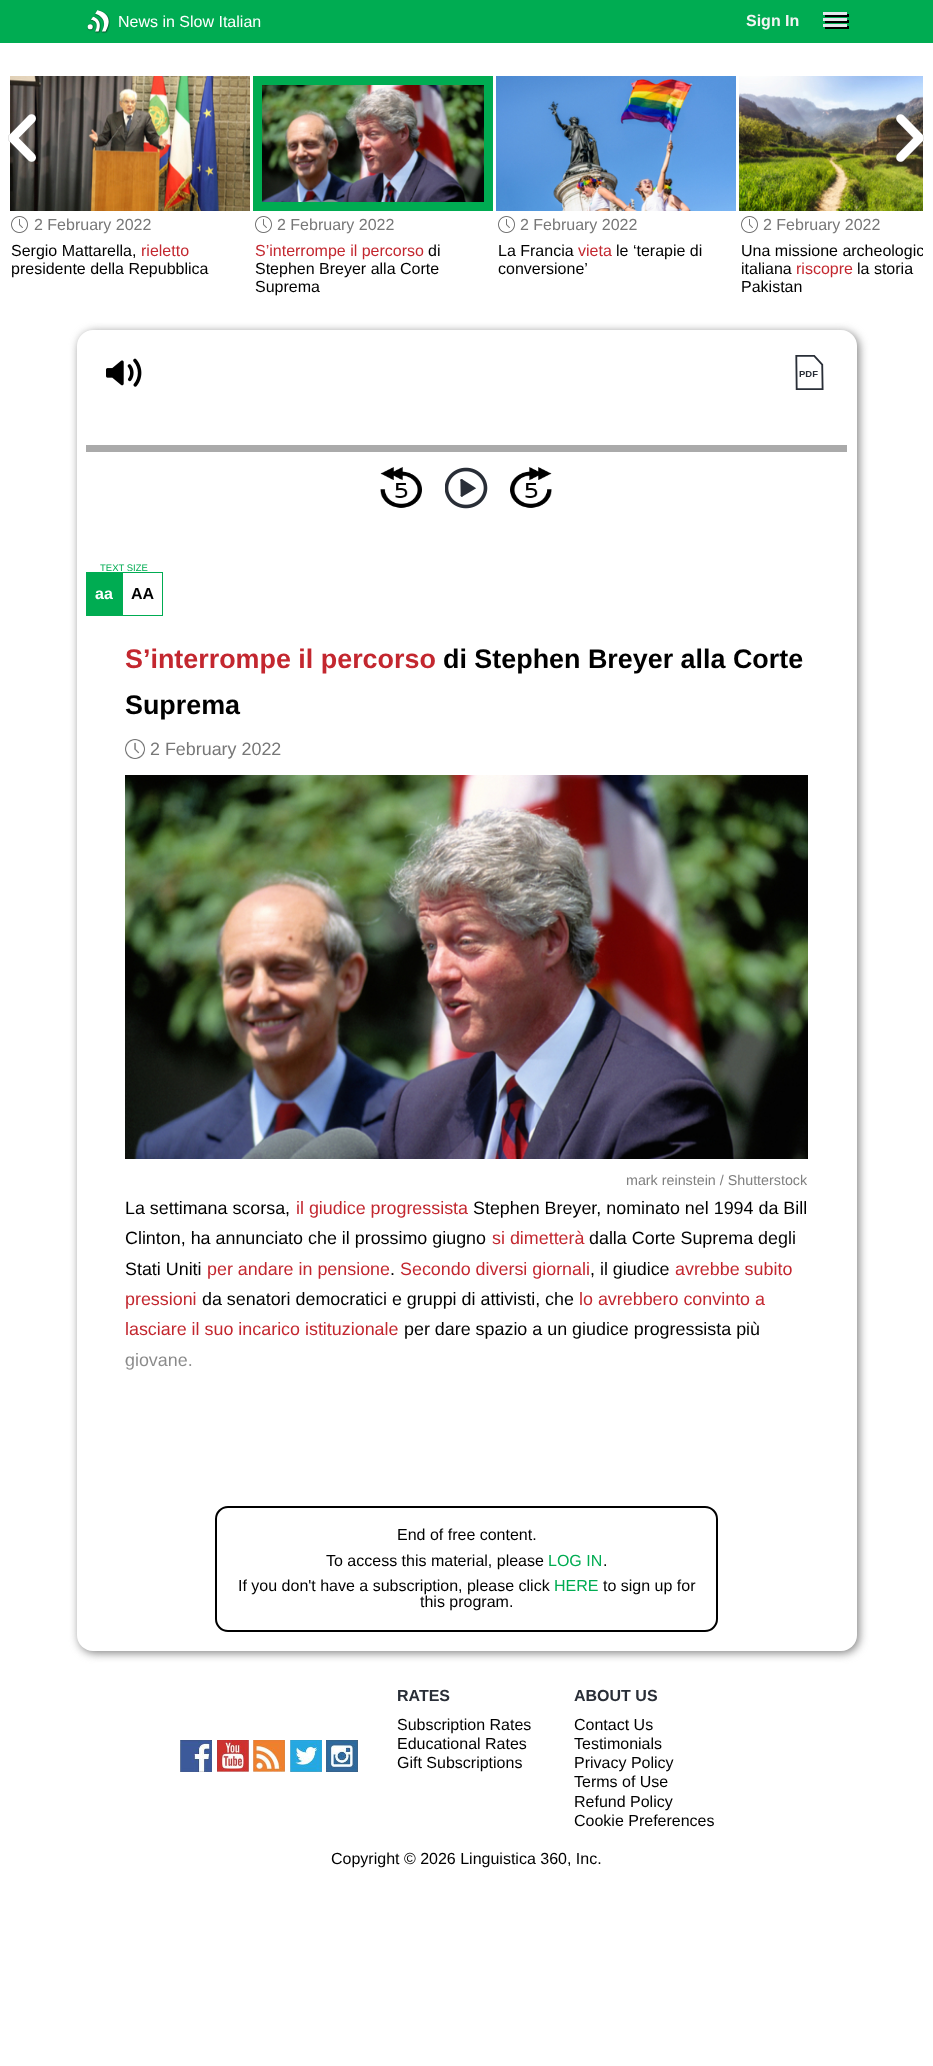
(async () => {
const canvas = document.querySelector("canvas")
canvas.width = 933
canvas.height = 2066
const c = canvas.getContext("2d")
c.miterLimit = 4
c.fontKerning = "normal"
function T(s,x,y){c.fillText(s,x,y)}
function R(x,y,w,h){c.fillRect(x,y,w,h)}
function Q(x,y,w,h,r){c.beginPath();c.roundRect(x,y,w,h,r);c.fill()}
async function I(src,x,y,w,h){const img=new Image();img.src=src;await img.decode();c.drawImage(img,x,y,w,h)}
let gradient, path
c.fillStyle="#fff"
R(0,0,933,2066)
c.fillStyle="#00ac52"
R(0,0,933,43)
await I("1.png",87,10,23,24)
c.font="16px Liberation Sans"
c.fillStyle="#fff"
T("News in Slow Italian",118,27)
c.font="bold 16px Liberation Sans"
c.fillStyle="#f4f4f4"
T("Sign In",746,26)
c.fillStyle="#000"
path = new Path2D("M825 15v2h24v-3h-2v1z")
c.fill(path)
c.fillStyle="#e4e7ed"
R(823,12,24,3)
c.fillStyle="#000"
path = new Path2D("M825 21v2h24v-3h-2v1z")
c.fill(path)
c.fillStyle="#e4e7ed"
R(823,18,24,3)
c.fillStyle="#000"
path = new Path2D("M825 27v2h24v-3h-2v1z")
c.fill(path)
c.fillStyle="#e4e7ed"
R(823,24,24,3)
await I("4.png",10,76,240,135)
await I("2.png",8,114,28,48)
await I("9.png",739,76,184,135)
await I("3.png",896,114,28,48)
await I("5.png",11,216,17,17)
c.font="16px Liberation Sans"
c.fillStyle="#777"
T("2 February 2022",34,230)
c.fillStyle="#000"
T("Sergio Mattarella,",11,256)
c.fillStyle="#c3272f"
T("rieletto",141,256)
c.fillStyle="#000"
T("presidente della Repubblica",11,274)
await I("6.png",262,85,222,117)
c.strokeStyle="#00ac52"
c.lineWidth=9
c.strokeRect(257.5,80.5,231,126)
await I("7.png",255,216,17,17)
c.fillStyle="#777"
T("2 February 2022",277,230)
c.fillStyle="#c3272f"
T("S’interrompe il percorso",255,256)
c.fillStyle="#000"
T("di",428,256)
T("Stephen Breyer alla Corte",255,274)
T("Suprema",255,292)
await I("8.png",496,76,240,135)
await I("7.png",498,216,17,17)
c.fillStyle="#777"
T("2 February 2022",520,230)
c.fillStyle="#000"
T("La Francia",498,256)
c.fillStyle="#c3272f"
T("vieta",578,256)
c.fillStyle="#000"
T("le ‘terapie di",616,256)
T("conversione’",498,274)
await I("5.png",741,216,17,17)
c.fillStyle="#777"
T("2 February 2022",763,230)
c.save()
c.beginPath()
c.rect(741,242,182,53)
c.clip()
c.fillStyle="#000"
T("Una missione archeologic",741,256)
c.restore()
c.fillStyle="#000"
T("italiana",741,274)
c.fillStyle="#c3272f"
T("riscopre",796,274)
c.fillStyle="#000"
T("la storia",857,274)
T("Pakistan",741,292)
c.fillStyle="#808080"
c.filter="blur(5px)"
c.beginPath()
c.roundRect(79,332,780,1321,16)
c.fill()
c.filter="none"
c.fillStyle="#fff"
Q(77,330,780,1321,16)
await I("10.png",106,358,36,29)
await I("11.png",795,355,29,35)
c.fillStyle="#aaa"
R(86,445,761,7)
await I("12.png",380,467,42,41)
await I("13.png",445,467,43,42)
await I("14.png",510,467,42,41)
c.font="9.5px Liberation Sans"
c.fillStyle="#00ac52"
T("TEXT SIZE",100,571)
R(86,572,36,44)
c.font="bold 16px Liberation Sans"
c.fillStyle="#fff"
T("aa",95,599)
c.lineWidth=1
c.strokeRect(122.5,572.5,40,43)
c.fillStyle="#000"
T("AA",131,599)
c.font="bold 26.9px Liberation Sans"
c.fillStyle="#c3272f"
T("S’interrompe il percorso",125,668)
c.fillStyle="#000"
T("di Stephen Breyer alla Corte",443,668)
T("Suprema",125,714)
await I("15.png",125,739,20,20)
c.font="17.9px Liberation Sans"
c.fillStyle="#777"
T("2 February 2022",150,755)
await I("16.png",125,775,683,384)
c.font="14.3px Liberation Sans"
c.fillStyle="#808080"
T("mark reinstein / Shutterstock",626,1185)
c.font="17.9px Liberation Sans"
c.fillStyle="#000"
T("La settimana scorsa,",125,1214)
c.fillStyle="#c3272f"
T("il giudice progressista",296,1214)
c.fillStyle="#000"
T("Stephen Breyer, nominato nel 1994 da Bill",473,1214)
T("Clinton, ha annunciato che il prossimo giugno",125,1244)
c.fillStyle="#c3272f"
T("si dimetterà",492,1244)
c.fillStyle="#000"
T("dalla Corte Suprema degli",589,1244)
T("Stati Uniti",125,1275)
c.fillStyle="#c3272f"
T("per andare in pensione",207,1275)
c.fillStyle="#000"
T(".",390,1275)
c.fillStyle="#c3272f"
T("Secondo diversi giornali",400,1275)
c.fillStyle="#000"
T(", il giudice",590,1275)
c.fillStyle="#c3272f"
T("avrebbe subito",675,1275)
T("pressioni",125,1305)
c.fillStyle="#000"
T("da senatori democratici e gruppi di attivisti, che",202,1305)
c.fillStyle="#c3272f"
T("lo avrebbero convinto a",579,1305)
T("lasciare il suo incarico istituzionale",125,1335)
c.fillStyle="#000"
T("per dare spazio a un giudice progressista più",404,1335)
T("giovane.",125,1366)
gradient = c.createLinearGradient(467,1341,467,1467)
gradient.addColorStop(0,"#ffffff00")
gradient.addColorStop(.1,"#ffffff80")
gradient.addColorStop(1,"#fff")
c.fillStyle = gradient
R(126,1353,66,17)
c.beginPath()
c.roundRect(216,1507,501,124,12)
c.strokeStyle="#000"
c.lineWidth=2
c.stroke()
c.font="16px Liberation Sans"
c.fillStyle="#000"
T("End of free content.",397,1540)
T("To access this material, please",326,1566)
c.fillStyle="#00ac52"
T("LOG IN",548,1566)
c.fillStyle="#000"
T(".",603,1566)
T("If you don't have a subscription, please click",238,1591)
c.fillStyle="#00ac52"
T("HERE",554,1591)
c.fillStyle="#000"
T("to sign up for",603,1591)
T("this program.",420,1607)
await I("17.png",180,1740,32,32)
await I("18.png",217,1740,32,32)
await I("19.png",253,1740,32,32)
await I("20.png",290,1740,32,32)
await I("21.png",326,1740,32,32)
c.font="bold 16px Liberation Sans"
c.fillStyle="#292e37"
T("RATES",397,1701)
c.font="16px Liberation Sans"
c.fillStyle="#000"
T("Subscription Rates",397,1730)
T("Educational Rates",397,1749)
T("Gift Subscriptions",397,1768)
c.font="bold 16px Liberation Sans"
c.fillStyle="#292e37"
T("ABOUT US",574,1701)
c.font="16px Liberation Sans"
c.fillStyle="#000"
T("Contact Us",574,1730)
T("Testimonials",574,1749)
T("Privacy Policy",574,1768)
T("Terms of Use",574,1787)
T("Refund Policy",574,1807)
T("Cookie Preferences",574,1826)
T("Copyright © 2026 Linguistica 360, Inc.",331,1864)
})()
